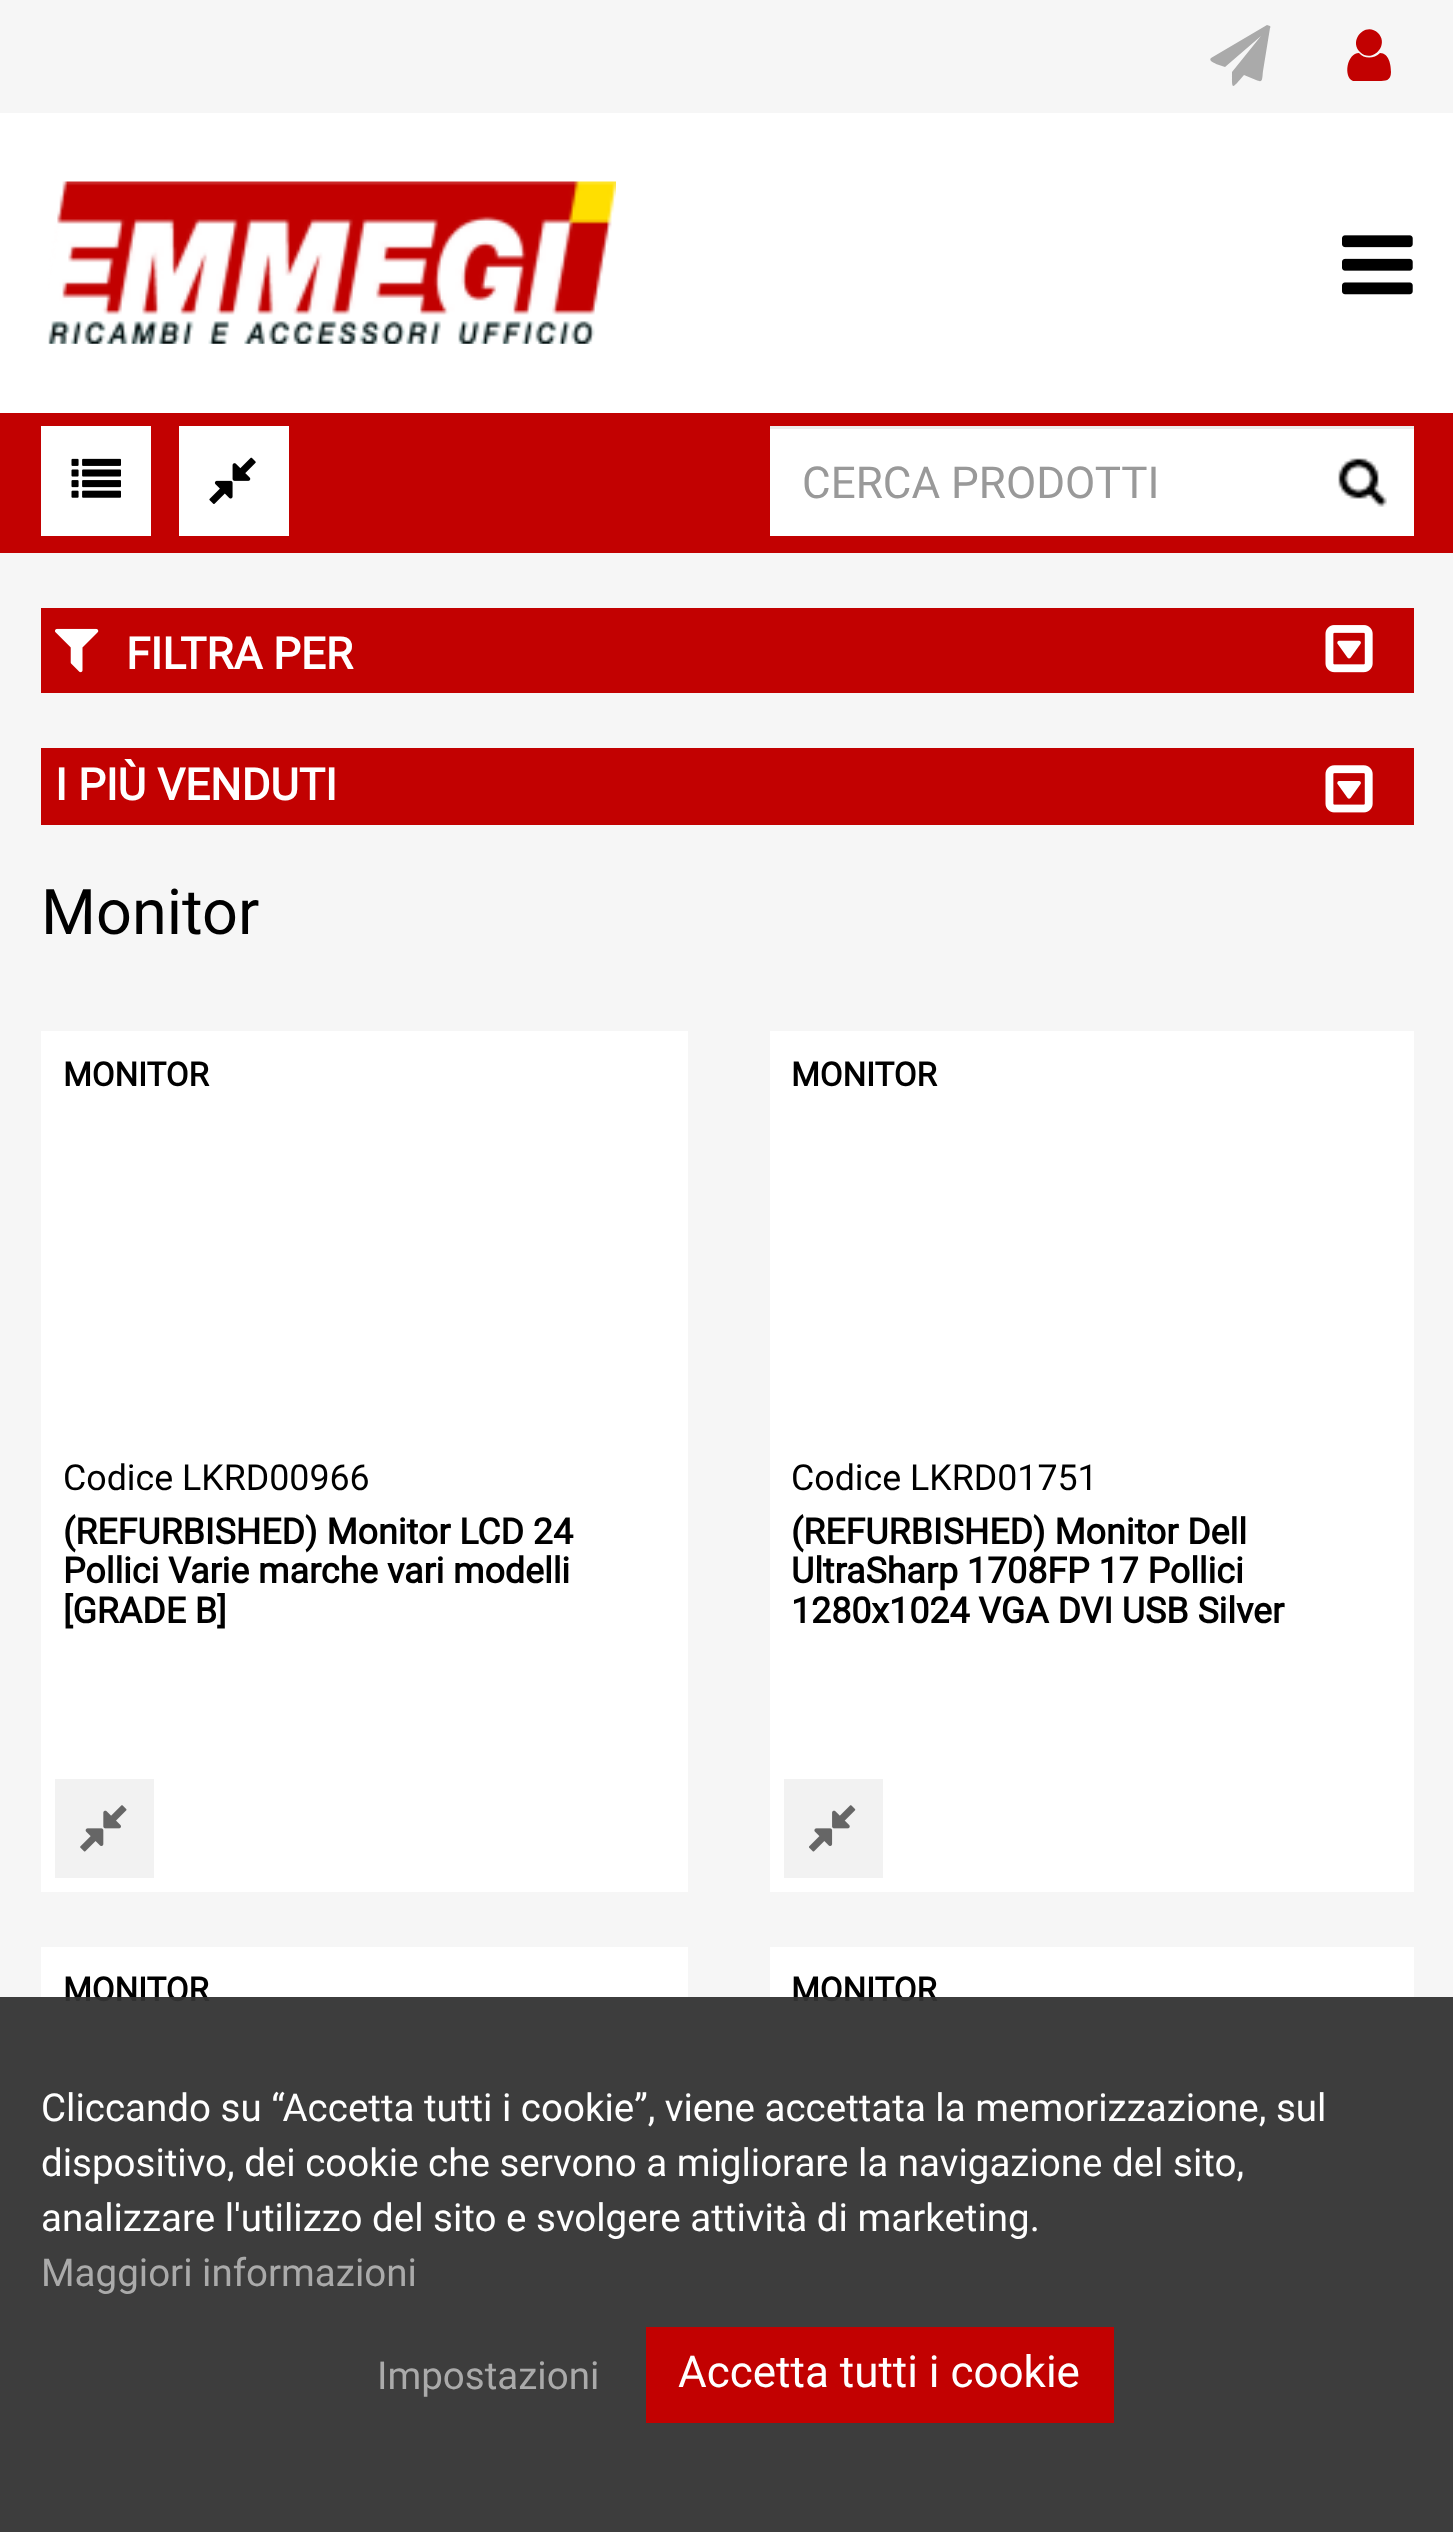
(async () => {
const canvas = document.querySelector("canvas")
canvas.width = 1453
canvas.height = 2532
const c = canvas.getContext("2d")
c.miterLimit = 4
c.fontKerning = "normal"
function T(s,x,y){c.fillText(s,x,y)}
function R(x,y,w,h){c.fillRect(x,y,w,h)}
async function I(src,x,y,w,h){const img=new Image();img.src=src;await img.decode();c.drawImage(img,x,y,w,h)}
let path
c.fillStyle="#fff"
R(0,0,1453,2532)
c.fillStyle="#f6f6f6"
R(0,0,1453,113)
c.fillStyle="#aaa"
path = new Path2D("M1270 26c0 0 1 1 0 2l-7 43c-1 9 0 12-7 9l-12-5c-13 15-12 15-12-3l29-36l-36 31l-9-3c-1-1-8-3-5-6l56-33z")
c.fill(path)
c.fillStyle="#c20101"
path = new Path2D("M1391 72c0 9-6 9-12 9h-26c-10-4-6-28 6-28c5 6 15 6 21 0c9 0 11 12 11 19zm-13-39c12 12-6 31-18 19c-12-12 6-31 18-19z")
c.fill(path)
await I("1.png",48,181,568,163)
await I("2.png",1342,235,71,60)
R(0,413,1453,140)
c.fillStyle="#fff"
R(41,426,110,110)
await I("3.png",71,458,50,40)
R(179,426,110,110)
await I("4.png",209,457,47,47)
R(770,429,644,107)
c.fillStyle="#ececec"
R(770,426,644,3)
c.font="44px Roboto"
c.fillStyle="#999"
T("CERCA PRODOTTI",802,498)
await I("5.png",1338,458,49,49)
c.fillStyle="#f6f6f6"
R(0,553,1453,1979)
c.fillStyle="#c20101"
R(41,608,1373,85)
await I("6.png",55,628,44,45)
c.font="bold 44px Roboto"
c.fillStyle="#fff"
T("FILTRA PER",126,669)
await I("7.png",1325,625,48,48)
c.fillStyle="#c20101"
R(41,748,1373,77)
c.fillStyle="#fff"
T("I PIÙ VENDUTI",55,800)
await I("8.png",1325,765,48,48)
c.font="63px Roboto"
c.fillStyle="#000"
T("Monitor",41,934)
c.fillStyle="#fff"
R(41,1031,647,861)
c.font="bold 33px Roboto"
c.fillStyle="#000"
T("MONITOR",63,1086)
c.font="35.75px Roboto"
T("Codice LKRD00966",63,1490)
c.font="bold 35.75px Roboto"
T("(REFURBISHED) Monitor LCD 24",63,1544)
T("Pollici Varie marche vari modelli",63,1583)
T("[GRADE B]",63,1623)
c.fillStyle="#f2f2f2"
R(55,1779,99,99)
await I("9.png",80,1805,47,47)
c.fillStyle="#fff"
R(770,1031,644,861)
c.font="bold 33px Roboto"
c.fillStyle="#000"
T("MONITOR",791,1086)
c.font="35.75px Roboto"
T("Codice LKRD01751",791,1490)
c.font="bold 35.75px Roboto"
T("(REFURBISHED) Monitor Dell",791,1544)
T("UltraSharp 1708FP 17 Pollici",791,1583)
T("1280x1024 VGA DVI USB Silver",791,1623)
c.fillStyle="#f2f2f2"
R(784,1779,99,99)
await I("10.png",809,1805,47,47)
c.fillStyle="#fff"
R(41,1947,647,585)
c.font="bold 33px Roboto"
c.fillStyle="#000"
T("MONITOR",63,2001)
c.fillStyle="#fff"
R(770,1947,644,585)
c.fillStyle="#000"
T("MONITOR",791,2001)
c.fillStyle="#333333f2"
R(0,1997,1453,535)
c.font="38.5px Roboto"
c.fillStyle="#fff"
T("Cliccando su “Accetta tutti i cookie”, viene accettata la memorizzazione, sul",41,2121)
T("dispositivo, dei cookie che servono a migliorare la navigazione del sito,",41,2176)
T("analizzare l'utilizzo del sito e svolgere attività di marketing.",41,2231)
c.fillStyle="#aaa"
T("Maggiori informazioni",41,2286)
T("Impostazioni",377,2389)
c.fillStyle="#c20101"
R(646,2327,468,96)
c.font="44px Roboto"
c.fillStyle="#fff"
T("Accetta tutti i cookie",678,2387)
})()
